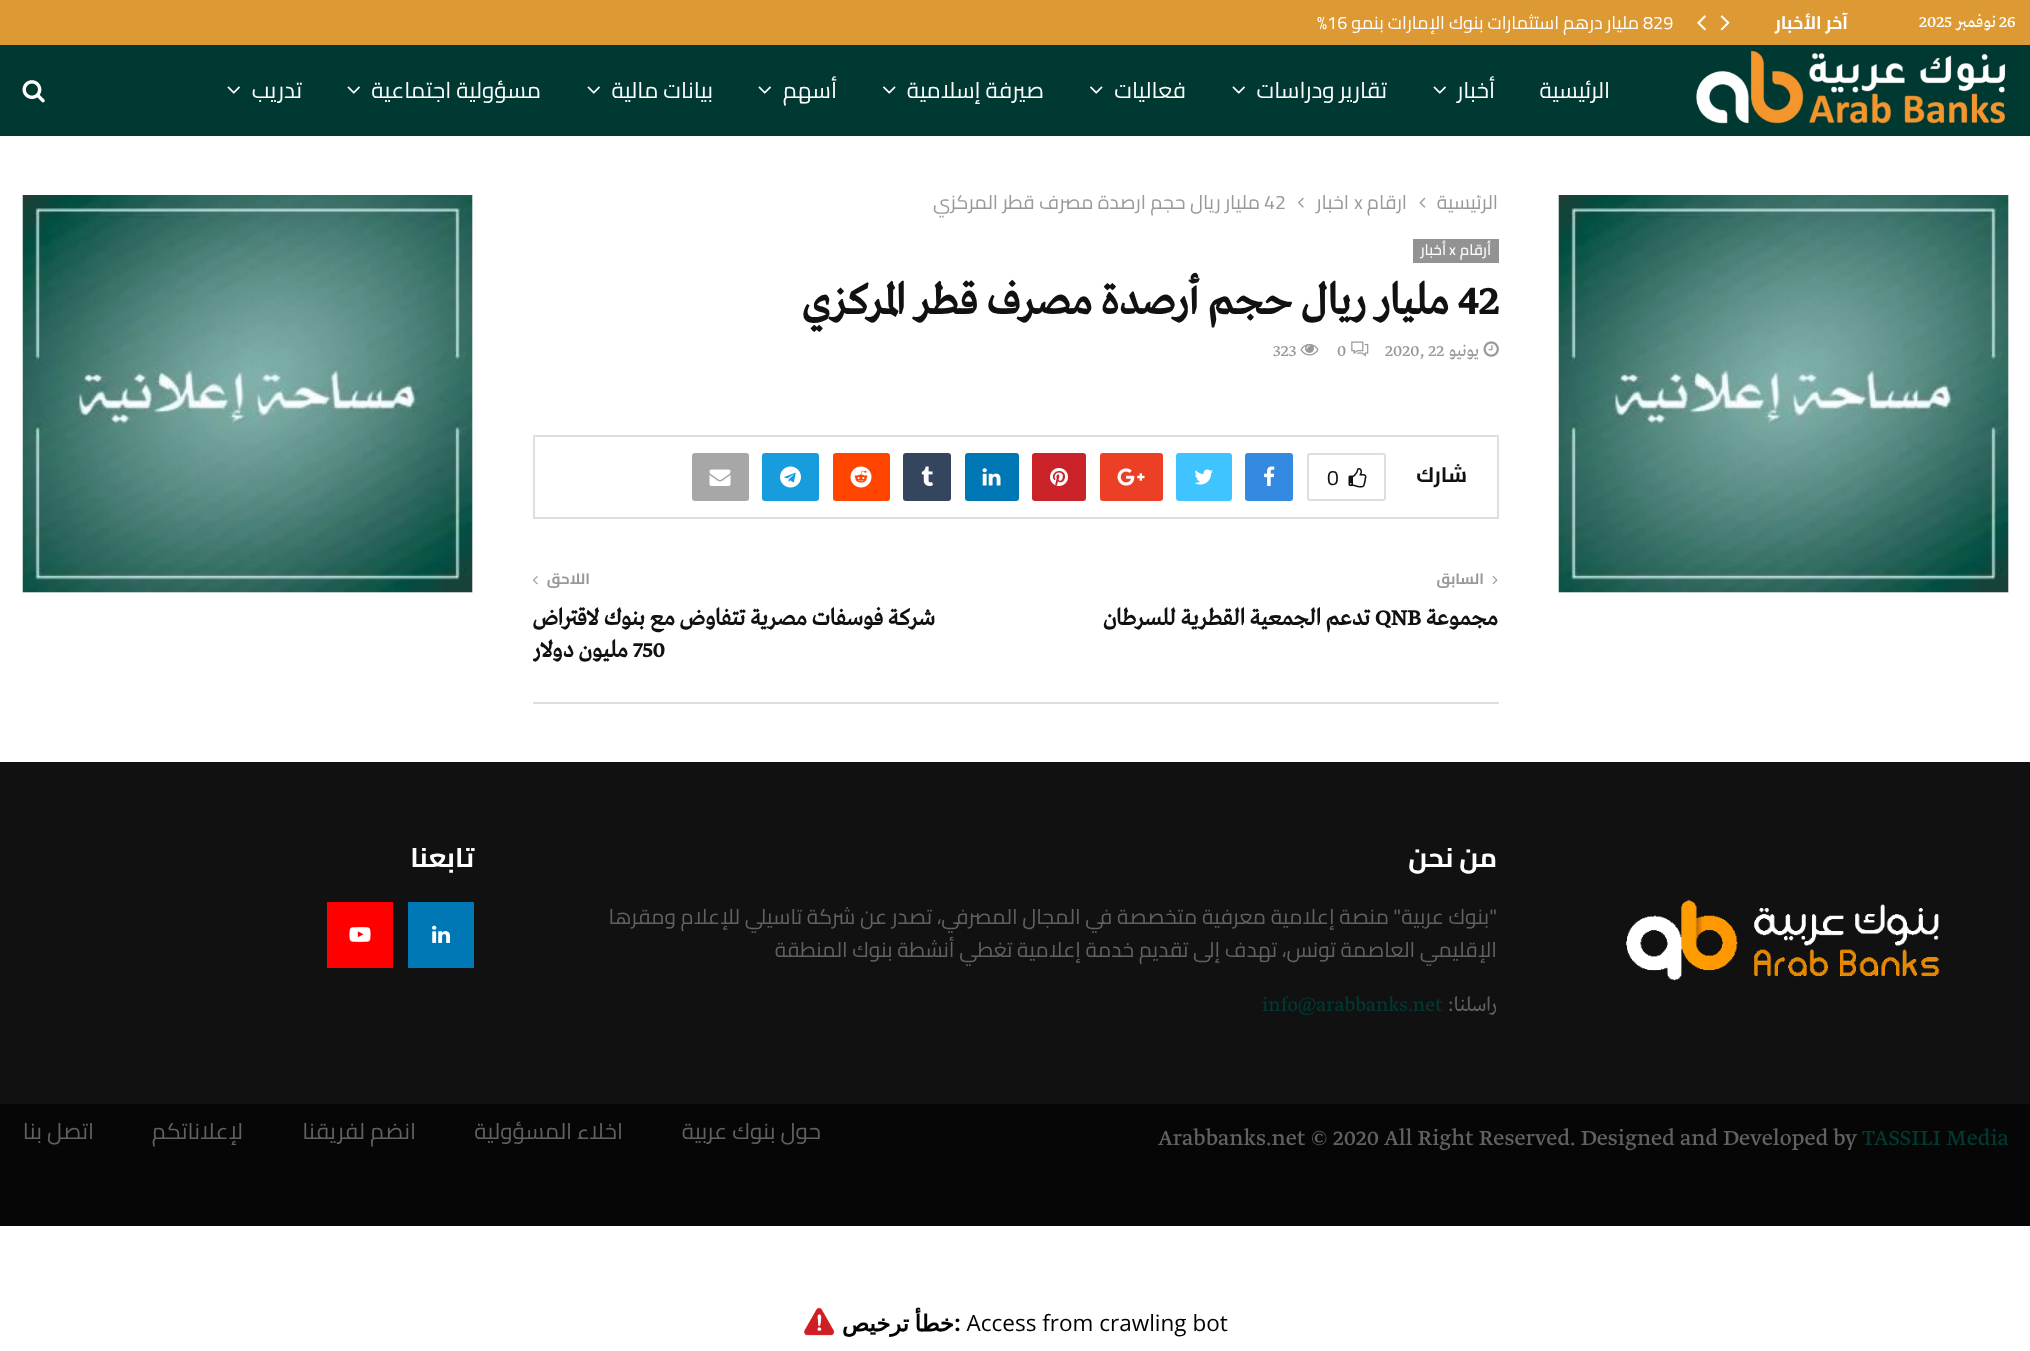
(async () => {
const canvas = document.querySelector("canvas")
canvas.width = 2030
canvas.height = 1351
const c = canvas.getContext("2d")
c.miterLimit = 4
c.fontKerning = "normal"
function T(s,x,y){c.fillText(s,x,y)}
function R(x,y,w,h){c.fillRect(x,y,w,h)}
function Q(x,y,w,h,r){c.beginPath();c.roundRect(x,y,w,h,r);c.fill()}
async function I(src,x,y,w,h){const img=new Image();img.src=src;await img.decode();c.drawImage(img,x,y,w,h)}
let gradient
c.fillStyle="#fff"
R(0,0,2030,1351)
c.fillStyle="#d93"
R(0,0,2030,45)
c.font="18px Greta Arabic"
c.fillStyle="#fff"
T("26",1999,27)
c.direction="rtl"
T("نوفمبر",1996,27)
c.direction="ltr"
T("2025",1919,27)
c.direction="rtl"
c.font="bold 18px Cairo"
T("آخر الأخبار",1848,29)
await I("1.png",1720,15,10,16)
await I("2.png",1697,15,9,16)
c.direction="ltr"
c.font="18px 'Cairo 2'"
T("829",1643,29)
c.direction="rtl"
c.font="18px Cairo"
T("مليار درهم استثمارات بنوك الإمارات بنمو",1639,29)
c.direction="ltr"
c.font="18px 'Cairo 2'"
T("%16",1317,29)
c.fillStyle="#003931"
R(0,45,2030,91)
await I("3.png",1696,50,310,74)
c.direction="rtl"
c.font="22.5px Cairo"
c.fillStyle="#fff"
T("الرئيسية",1610,98)
T("أخبار",1495,98)
await I("4.png",1433,86,13,8)
T("تقارير ودراسات",1387,98)
await I("4.png",1232,86,13,8)
T("فعاليات",1186,98)
await I("5.png",1090,86,13,8)
T("صيرفة إسلامية",1044,98)
await I("5.png",883,86,13,8)
T("أسهم",837,98)
await I("4.png",758,86,13,8)
T("بيانات مالية",713,98)
await I("4.png",587,86,13,8)
T("مسؤولية اجتماعية",541,98)
await I("4.png",347,86,13,8)
T("تدريب",302,98)
await I("4.png",227,86,13,8)
await I("6.png",22,80,23,23)
gradient = c.createLinearGradient(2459,394,1109,394)
gradient.addColorStop(0,"#f5f5f5")
gradient.addColorStop(.15,"#efefef")
gradient.addColorStop(.4,"#f5f5f5")
gradient.addColorStop(1,"#f5f5f5")
c.fillStyle = gradient
R(1559,195,450,398)
await I("7.png",1558,195,451,398)
c.save()
c.beginPath()
c.rect(0,195,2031,540)
c.clip()
c.font="19.5px Cairo"
c.fillStyle="#999"
T("الرئيسية",1498,209)
c.restore()
await I("8.png",1419,197,7,11)
c.save()
c.beginPath()
c.rect(0,195,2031,540)
c.clip()
c.font="19.5px Cairo"
c.fillStyle="#999"
T("أرقام",1407,209)
c.restore()
c.direction="ltr"
c.font="19.5px 'Cairo 2'"
c.fillStyle="#999"
T("x",1354,209)
c.save()
c.beginPath()
c.rect(0,195,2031,540)
c.clip()
c.direction="rtl"
c.font="19.5px Cairo"
T("أخبار",1349,209)
c.restore()
await I("9.png",1298,197,6,11)
T("42",1264,209)
c.save()
c.beginPath()
c.rect(0,195,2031,540)
c.clip()
c.direction="rtl"
c.font="19.5px Cairo"
T("مليار ريال حجم أرصدة مصرف قطر المركزي",1260,209)
c.restore()
c.fillStyle="#939393"
R(1413,239,86,24)
c.direction="rtl"
c.font="500 15px Cairo"
c.fillStyle="#fff"
T("أرقام",1491,255)
c.direction="ltr"
T("x",1449,255)
c.direction="rtl"
T("أخبار",1446,255)
c.direction="ltr"
c.font="bold 45px Greta Arabic"
c.fillStyle="#111"
T("42",1458,314)
c.direction="rtl"
T("مليار ريال حجم أرصدة مصرف قطر المركزي",1449,314)
await I("10.png",1483,341,16,16)
c.font="18px Greta Arabic"
c.fillStyle="#999"
T("يونيو",1479,356)
c.direction="ltr"
T("2020, 22",1385,356)
await I("11.png",1351,341,18,16)
T("0",1337,356)
await I("12.png",1300,343,19,13)
T("323",1273,356)
c.strokeStyle="#dedede"
c.lineWidth=2
c.strokeRect(534,436,964,82)
c.direction="rtl"
c.font="bold 21px Cairo"
c.fillStyle="#111"
T("شارك",1467,482)
c.beginPath()
c.roundRect(1308,454,77,46,2)
c.stroke()
await I("13.png",1348,468,19,20)
c.direction="ltr"
c.font="21px 'Cairo 2'"
T("0",1327,485)
c.fillStyle="#338ae0"
Q(1245,453,48,48,3)
await I("14.png",1264,466,11,20)
c.fillStyle="#40c4ff"
Q(1176,453,56,48,3)
await I("15.png",1194,469,19,16)
c.fillStyle="#eb4026"
Q(1100,453,63,48,3)
await I("16.png",1117,468,28,18)
c.fillStyle="#c92228"
Q(1032,453,54,48,3)
await I("17.png",1050,468,18,18)
c.fillStyle="#0077b5"
Q(965,453,54,48,3)
await I("18.png",982,468,19,18)
c.fillStyle="#34465d"
Q(903,453,48,48,3)
await I("19.png",921,466,12,20)
c.fillStyle="#ff4500"
Q(833,453,57,48,3)
await I("20.png",850,466,22,22)
c.fillStyle="#179cde"
Q(762,453,57,48,3)
await I("21.png",780,466,21,22)
c.fillStyle="#a7a7a7"
Q(692,453,57,48,3)
await I("22.png",709,469,22,17)
c.fillStyle="#dedede"
R(533,702,966,2)
await I("23.png",1492,576,6,9)
c.direction="rtl"
c.font="bold 15px Cairo"
c.fillStyle="#999"
T("السابق",1484,584)
c.font="bold 24px Greta Arabic"
c.fillStyle="#111"
T("مجموعة",1498,625)
c.direction="ltr"
T("QNB",1375,625)
c.direction="rtl"
T("تدعم الجمعية القطرية للسرطان",1370,625)
c.font="bold 15px Cairo"
c.fillStyle="#999"
T("اللاحق",590,584)
await I("24.png",533,576,5,9)
c.font="bold 24px Greta Arabic"
c.fillStyle="#111"
T("شركة فوسفات مصرية تتفاوض مع بنوك لاقتراض",935,625)
c.direction="ltr"
T("750",633,657)
c.save()
c.beginPath()
c.rect(533,564,453,104)
c.clip()
c.direction="rtl"
T("مليون دولار",628,657)
c.restore()
gradient = c.createLinearGradient(923,394,-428,394)
gradient.addColorStop(0,"#f5f5f5")
gradient.addColorStop(.15,"#efefef")
gradient.addColorStop(.4,"#f5f5f5")
gradient.addColorStop(1,"#f5f5f5")
c.fillStyle = gradient
R(23,195,450,398)
await I("7.png",22,195,451,398)
c.fillStyle="#111"
R(0,762,2030,342)
await I("25.png",1626,900,314,81)
c.direction="rtl"
c.font="bold 27px Cairo"
c.fillStyle="#fff"
T("من نحن",1497,867)
c.font="21px 'Cairo 2'"
c.fillStyle="#616161"
T("\"",1497,924)
c.font="21px Cairo"
T("بنوك عربية",1489,924)
c.font="21px 'Cairo 2'"
T("\"",1401,924)
c.font="21px Cairo"
T("منصة إعلامية معرفية متخصصة في المجال المصرفي، تصدر عن شركة تاسيلي للإعلام ومقرها",1389,924)
T("الإقليمي العاصمة تونس، تهدف إلى تقديم خدمة إعلامية تغطي أنشطة بنوك المنطقة",1497,957)
c.font="21px Greta Arabic"
T("راسلنا:",1497,1011)
c.direction="ltr"
c.fillStyle="#003931"
T("info@arabbanks.net",1262,1011)
c.direction="rtl"
c.font="bold 27px Cairo"
c.fillStyle="#fff"
T("تابعنا",474,867)
c.fillStyle="#0077b5"
R(408,902,66,66)
await I("26.png",432,925,18,18)
c.fillStyle="#f00"
R(327,902,66,66)
await I("27.png",349,927,22,15)
c.fillStyle="#060606"
R(0,1104,2030,122)
c.direction="ltr"
c.font="24px Greta Arabic"
c.fillStyle="#003931"
T("TASSILI Media",1862,1145)
c.fillStyle="#616161"
T("Arabbanks.net © 2020 All Right Reserved. Designed and Developed by",1158,1145)
c.direction="rtl"
c.font="22.5px Cairo"
T("حول بنوك عربية",821,1139)
T("اخلاء المسؤولية",623,1139)
T("انضم لفريقنا",416,1139)
T("لإعلاناتكم",243,1139)
T("اتصل بنا",94,1139)
await I("28.png",0,1307,2030,44)
})()
